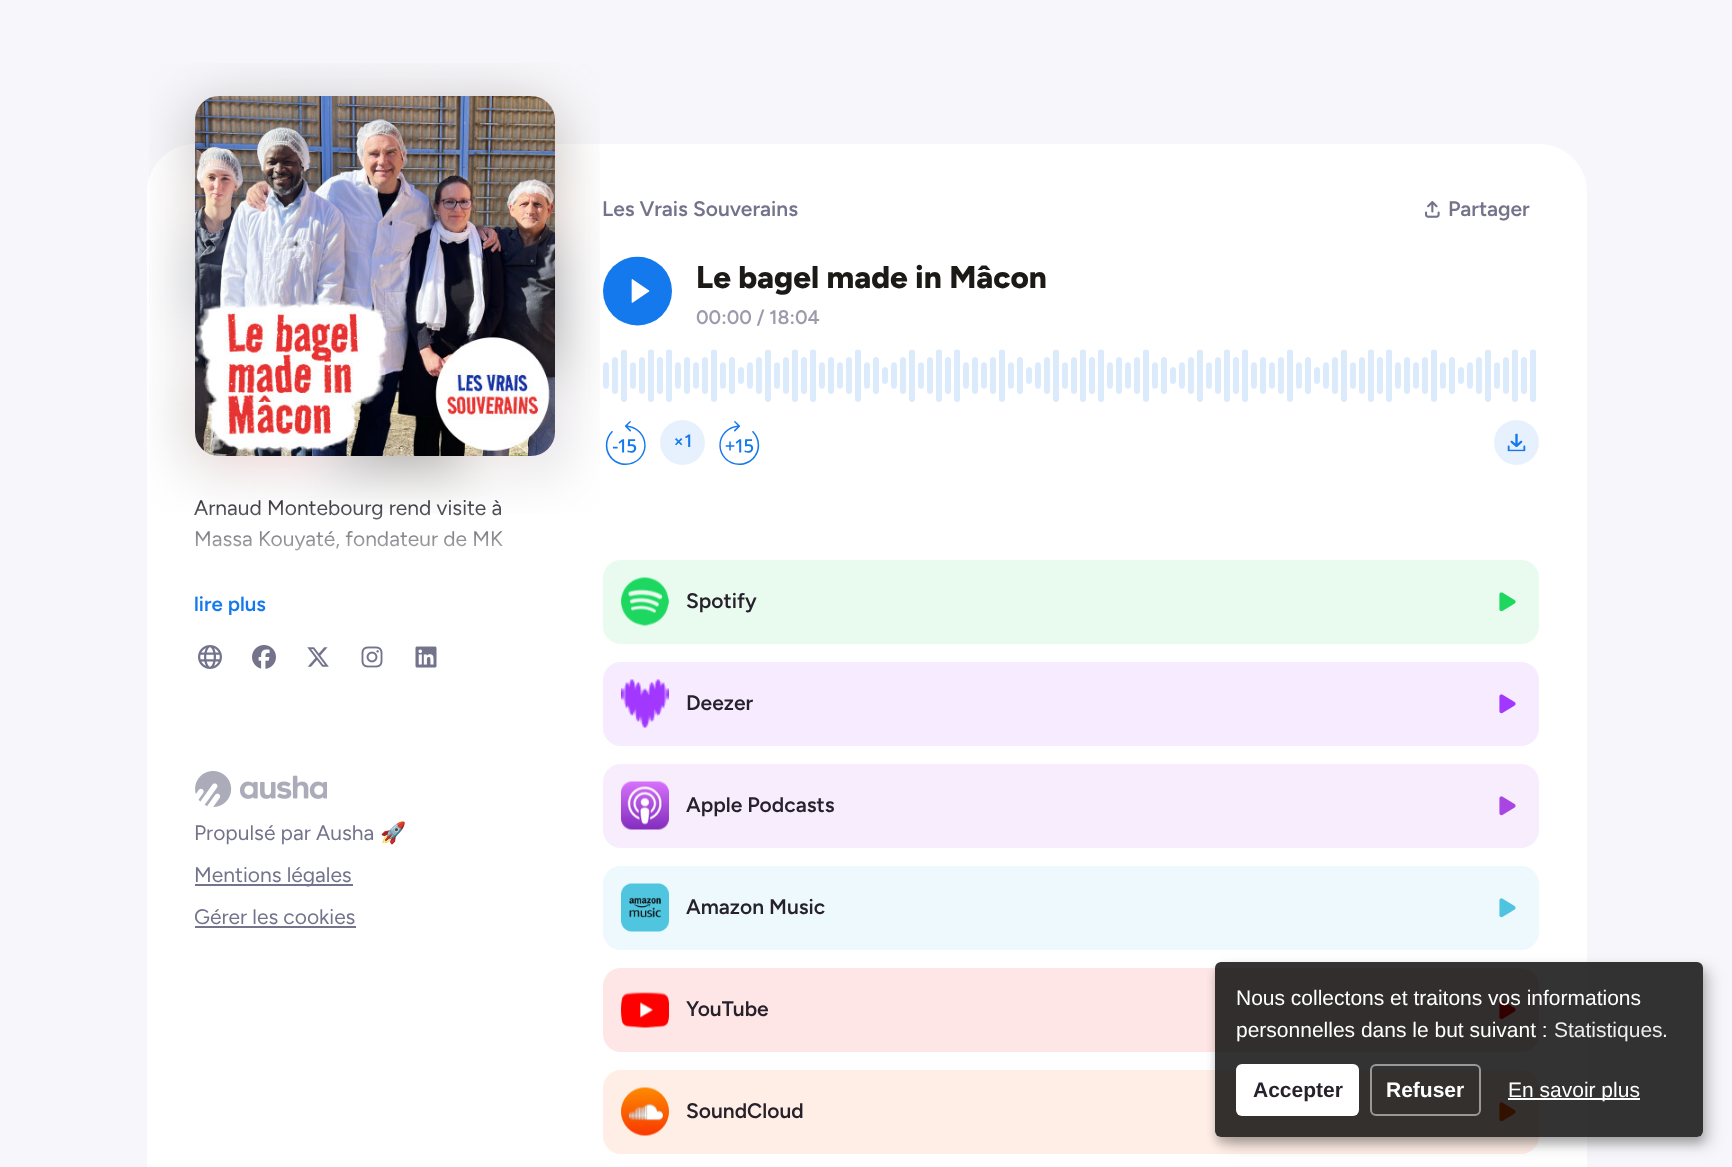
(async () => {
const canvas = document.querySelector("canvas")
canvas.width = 1732
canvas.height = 1167
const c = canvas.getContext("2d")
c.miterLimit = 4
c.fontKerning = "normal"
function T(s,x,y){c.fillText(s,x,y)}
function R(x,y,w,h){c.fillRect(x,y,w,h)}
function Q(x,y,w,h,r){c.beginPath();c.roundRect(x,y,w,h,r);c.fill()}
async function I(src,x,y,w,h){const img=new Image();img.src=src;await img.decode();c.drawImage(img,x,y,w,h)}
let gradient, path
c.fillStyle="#f7f7fb"
R(0,0,1732,1167)
c.fillStyle="#fff"
path = new Path2D("M195 144h1344c26.5 0 48 21.5 48 48v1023h-1440v-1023c0-26.5 21.5-48 48-48z")
c.fill(path)
await I("1.png",149,63,451,450)
await I("2.png",195,96,360,360)
c.font="21px Figtree"
c.fillStyle="#26212b"
T("Arnaud Montebourg rend visite à",194,515)
T("Massa Kouyaté, fondateur de MK",194,546)
gradient = c.createLinearGradient(375,588,375,492)
gradient.addColorStop(0,"#fff")
gradient.addColorStop(1,"#ffffff00")
c.fillStyle = gradient
R(195,500,308,51)
c.font="600 20.5px Figtree"
c.fillStyle="#1579ee"
T("lire plus",194,611)
await I("3.png",198,645,24,24)
await I("4.png",252,645,24,24)
await I("5.png",307,647,22,20)
await I("6.png",361,646,22,22)
await I("7.png",415,646,22,22)
await I("8.png",195,771,132,36)
c.font="21px Figtree"
c.fillStyle="#73738c"
T("Propulsé par Ausha",194,840)
c.font="21px Noto Color Emoji"
T("🚀",380,840)
R(195,884,158,2)
c.font="21px Figtree"
T("Mentions légales",194,882)
T("Gérer les cookies",194,924)
R(195,926,161,2)
c.font="600 21px Figtree"
T("Les Vrais Souverains",602,216)
await I("9.png",1425,201,15,17)
T("Partager",1448,216)
await I("10.png",603,256,936,209)
c.fillStyle="#e9fbef"
Q(603,560,936,84,18)
await I("11.png",621,577,48,49)
c.fillStyle="#26212b"
T("Spotify",686,608)
await I("12.png",1499,592,17,20)
c.fillStyle="#f6ebff"
Q(603,662,936,84,18)
await I("13.png",621,679,48,49)
c.fillStyle="#26212b"
T("Deezer",686,710)
await I("14.png",1499,694,17,20)
c.fillStyle="#f7edfc"
Q(603,764,936,84,18)
await I("15.png",621,781,48,49)
c.fillStyle="#26212b"
T("Apple Podcasts",686,812)
await I("16.png",1499,796,17,20)
c.fillStyle="#edf9fc"
Q(603,866,936,84,18)
await I("17.png",621,883,48,49)
c.fillStyle="#26212b"
T("Amazon Music",686,914)
await I("18.png",1499,898,17,20)
c.fillStyle="#ffe6e6"
Q(603,968,936,84,18)
await I("19.png",621,992,48,36)
c.fillStyle="#26212b"
T("YouTube",686,1016)
await I("20.png",1499,1000,17,20)
c.fillStyle="#ffeee6"
Q(603,1070,936,84,18)
await I("21.png",621,1087,48,49)
c.fillStyle="#26212b"
T("SoundCloud",686,1118)
await I("22.png",1499,1102,17,20)
c.save()
path = new Path2D("M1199 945h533v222h-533zm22 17h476c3.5 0 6 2.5 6 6v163c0 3.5-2.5 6-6 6h-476c-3.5 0-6-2.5-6-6v-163c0-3.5 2.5-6 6-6z")
c.clip(path,"evenodd")
c.fillStyle="#00000030"
c.filter="blur(7.5px)"
c.beginPath()
c.roundRect(1223,969,487,176,6)
c.fill()
c.filter="none"
c.restore()
c.save()
path = new Path2D("M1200 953h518v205h-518zm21 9h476c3.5 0 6 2.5 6 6v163c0 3.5-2.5 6-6 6h-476c-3.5 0-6-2.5-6-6v-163c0-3.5 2.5-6 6-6z")
c.clip(path,"evenodd")
c.fillStyle="#00000033"
c.filter="blur(4.5px)"
c.beginPath()
c.roundRect(1215,968,488,175,6)
c.fill()
c.filter="none"
c.restore()
c.fillStyle="#000000cc"
Q(1215,962,488,175,6)
c.font="21px Liberation Sans"
c.fillStyle="#fff"
T("Nous collectons et traitons vos informations",1236,1005)
T("personnelles dans le but suivant :",1236,1037)
c.fillStyle="#eee"
T("Statistiques",1554,1037)
c.fillStyle="#fff"
T(".",1662,1037)
Q(1236,1064,123,52,6)
c.font="bold 21px Liberation Sans"
c.fillStyle="#26212b"
T("Accepter",1253,1097)
c.beginPath()
c.roundRect(1371,1065,109,50,5)
c.strokeStyle="#ffffff80"
c.lineWidth=2
c.stroke()
c.fillStyle="#fff"
T("Refuser",1386,1097)
R(1508,1098,132,2)
c.font="21px Liberation Sans"
T("En savoir plus",1508,1097)
})()
